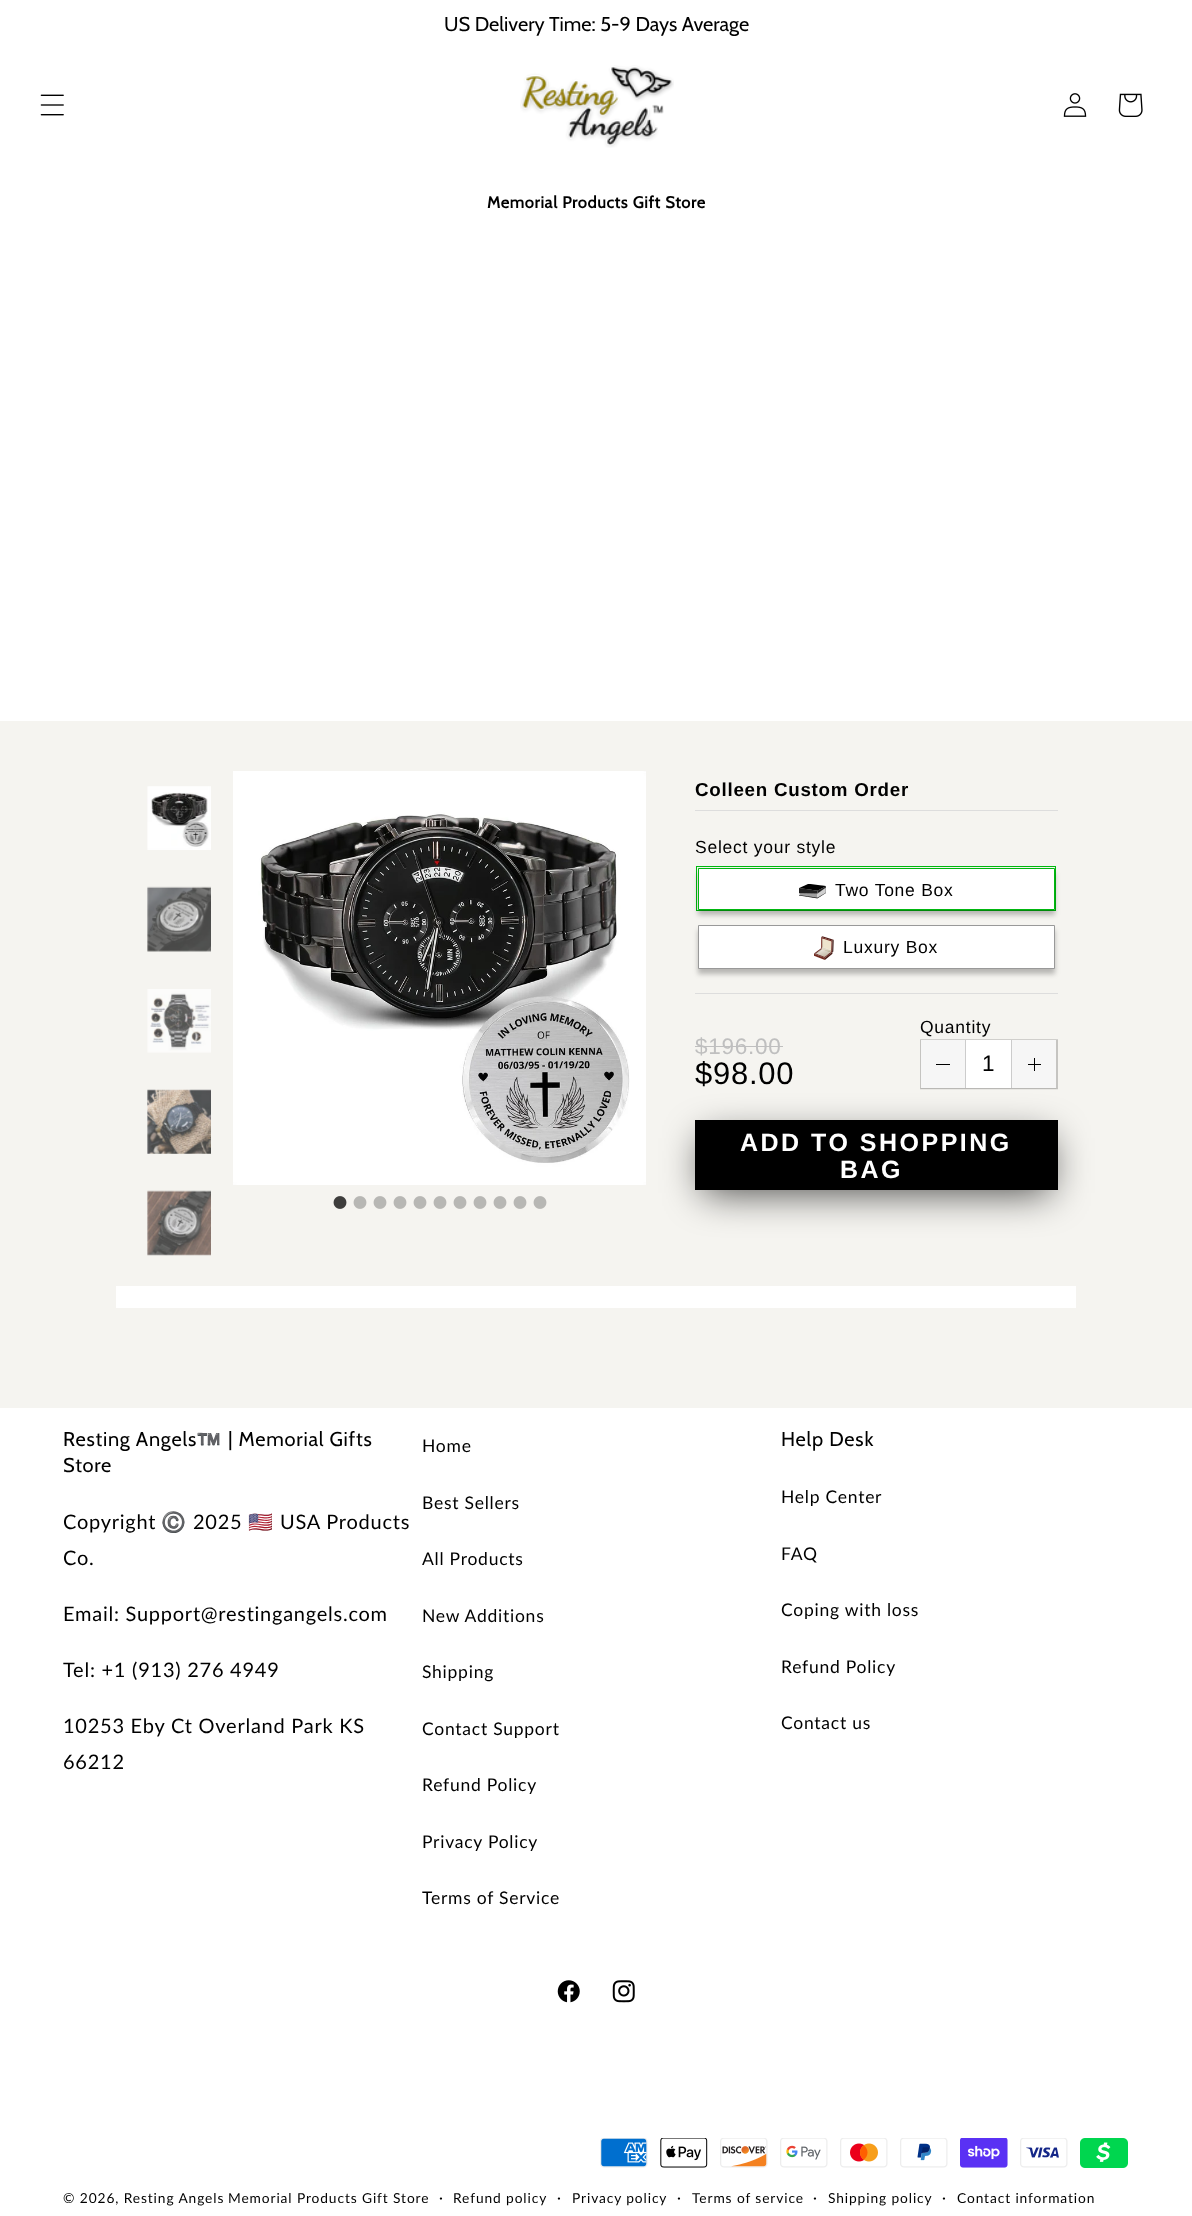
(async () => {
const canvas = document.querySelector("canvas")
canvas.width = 1192
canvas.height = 2216
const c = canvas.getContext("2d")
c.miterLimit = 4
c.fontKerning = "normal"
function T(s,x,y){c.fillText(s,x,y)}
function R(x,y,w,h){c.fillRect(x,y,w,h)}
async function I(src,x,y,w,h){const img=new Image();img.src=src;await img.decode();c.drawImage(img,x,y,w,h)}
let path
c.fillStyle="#fff"
R(0,0,1192,2216)
c.font="20px Cabin"
c.fillStyle="#000"
T("US Delivery Time: 5-9 Days Average",444,31)
await I("1.png",40,94,24,22)
await I("2.png",520,65,154,83)
await I("3.png",1063,93,24,24)
await I("4.png",1118,93,25,24)
c.letterSpacing="0.75px"
c.font="bold 16.25px Cabin"
T("Memorial Products Gift Store",487,208)
c.fillStyle="#f5f4f0"
R(0,721,1192,687)
await I("5.png",147,786,64,64)
await I("6.png",147,886,64,66)
await I("7.png",147,989,64,64)
await I("8.png",147,1089,64,65)
await I("9.png",147,1190,64,66)
await I("10.png",233,771,413,414)
await I("11.png",333,1196,14,13)
await I("12.png",353,1196,14,13)
await I("12.png",373,1196,14,13)
await I("12.png",393,1196,14,13)
await I("12.png",413,1196,14,13)
await I("12.png",433,1196,14,13)
await I("12.png",453,1196,14,13)
await I("12.png",473,1196,14,13)
await I("12.png",493,1196,14,13)
await I("12.png",513,1196,14,13)
await I("12.png",533,1196,14,13)
c.fillStyle="#ddd"
R(695,810,363,1)
c.font="bold 18.75px Liberation Sans"
c.fillStyle="#000"
T("Colleen Custom Order",695,796)
c.fillStyle="#ddd"
R(695,993,363,1)
c.font="17.5px Liberation Sans"
c.fillStyle="#000"
T("Select your style",695,853)
c.strokeStyle="#00b70f"
c.strokeRect(696.5,866.5,359,44)
c.fillStyle="#00000040"
c.filter="blur(2.5px)"
c.beginPath()
c.rect(698,873,357,42)
c.fill()
c.filter="none"
c.fillStyle="#fff"
c.beginPath()
c.rect(698.5,868.5,356,41)
c.fill()
c.stroke()
await I("13.png",799,884,27,15)
c.fillStyle="#000"
T("Two Tone Box",835,896)
c.fillStyle="#00000040"
c.filter="blur(2.5px)"
c.beginPath()
c.rect(698,930,357,44)
c.fill()
c.filter="none"
c.fillStyle="#fff"
c.beginPath()
c.rect(698.5,925.5,356,43)
c.fill()
c.strokeStyle="#999"
c.stroke()
await I("14.png",814,936,20,24)
c.fillStyle="#000"
T("Luxury Box",843,953)
c.font="22.5px Liberation Sans"
c.fillStyle="#bfbfbf"
T("$196.00",695,1054)
R(695,1046,88,1)
c.font="31px Liberation Sans"
c.fillStyle="#000"
T("$98.00",695,1084)
c.font="17.5px Liberation Sans"
T("Quantity",920,1033)
c.fillStyle="#0000000d"
c.filter="blur(0.5px)"
c.beginPath()
c.rect(920,1040,138,50)
c.fill()
c.filter="none"
c.fillStyle="#d0cfcc"
path = new Path2D("M920 1039h138l-2 1h-135z")
c.fill(path)
c.fillStyle="#00000026"
path = new Path2D("M1058 1039v50l-2-1v-48z")
c.fill(path)
c.fillStyle="#00000033"
path = new Path2D("M1058 1089h-138l1-1h135z")
c.fill(path)
c.fillStyle="#00000026"
path = new Path2D("M920 1089v-50l1 1v48z")
c.fill(path)
c.fillStyle="#f6f6f6"
R(921,1040,44,48)
c.fillStyle="#ccc"
R(965,1040,1,48)
c.fillStyle="#000"
R(936,1064,14,1)
c.fillStyle="#fff"
R(966,1040,45,48)
c.letterSpacing="0px"
c.font="22.5px Liberation Sans"
c.fillStyle="#000"
T("1",982,1071)
c.fillStyle="#f6f6f6"
R(1012,1040,44,48)
c.fillStyle="#ccc"
R(1011,1040,1,48)
c.fillStyle="#000"
R(1034,1058,1,13)
R(1028,1064,13,1)
c.fillStyle="#000000b3"
c.filter="blur(19px)"
c.beginPath()
c.rect(703,1138,347,55)
c.fill()
c.filter="none"
c.fillStyle="#000"
R(695,1120,363,70)
c.letterSpacing="2.5px"
c.font="bold 25px Liberation Sans"
c.fillStyle="#fff"
T("ADD TO SHOPPING",740,1151)
T("BAG",840,1178)
R(116,1286,960,22)
c.letterSpacing="0.75px"
c.font="20px Cabin"
c.fillStyle="#000"
T("Resting Angels",63,1446)
c.font="20px Noto Color Emoji"
T("™️",196,1446)
c.font="20px Cabin"
T("| Memorial Gifts",228,1446)
T("Store",63,1472)
c.font="20px Lato"
T("Copyright",63,1529)
c.font="20px Noto Color Emoji"
T("©️",161,1529)
c.font="20px Lato"
T("2025",193,1529)
c.font="20px Noto Color Emoji"
T("🇺🇸",248,1529)
c.font="20px Lato"
T("USA Products",280,1529)
T("Co.",63,1565)
T("Email: Support@restingangels.com",63,1621)
T("Tel: +1 (913) 276 4949",63,1677)
T("10253 Eby Ct Overland Park KS",63,1733)
T("66212",63,1769)
c.font="17.5px Lato"
T("Home",422,1452)
T("Best Sellers",422,1509)
T("All Products",422,1565)
T("New Additions",422,1622)
T("Shipping",422,1678)
T("Contact Support",422,1735)
T("Refund Policy",422,1791)
T("Privacy Policy",422,1848)
T("Terms of Service",422,1904)
c.font="20px Cabin"
T("Help Desk",781,1446)
c.font="17.5px Lato"
T("Help Center",781,1503)
T("FAQ",781,1560)
T("Coping with loss",781,1616)
T("Refund Policy",781,1673)
T("Contact us",781,1729)
await I("15.png",557,1980,23,23)
await I("16.png",612,1980,23,23)
await I("17.png",600,2138,48,30)
await I("18.png",660,2138,48,30)
await I("19.png",720,2138,48,30)
await I("20.png",780,2138,48,30)
await I("21.png",840,2138,48,30)
await I("22.png",900,2138,48,30)
await I("23.png",960,2138,48,30)
await I("24.png",1020,2138,48,30)
await I("25.png",1080,2138,48,30)
c.letterSpacing="0.9px"
c.font="13.75px Lato"
T("© 2026, Resting Angels",63,2203)
T("Memorial Products Gift Store",228,2203)
c.font="15px Lato"
T("·",439,2203)
c.font="13.75px Lato"
T("Refund policy",453,2203)
c.font="15px Lato"
T("·",557,2203)
c.font="13.75px Lato"
T("Privacy policy",572,2203)
c.font="15px Lato"
T("·",677,2203)
c.font="13.75px Lato"
T("Terms of service",692,2203)
c.font="15px Lato"
T("·",813,2203)
c.font="13.75px Lato"
T("Shipping policy",828,2203)
c.font="15px Lato"
T("·",942,2203)
c.font="13.75px Lato"
T("Contact information",957,2203)
})()
